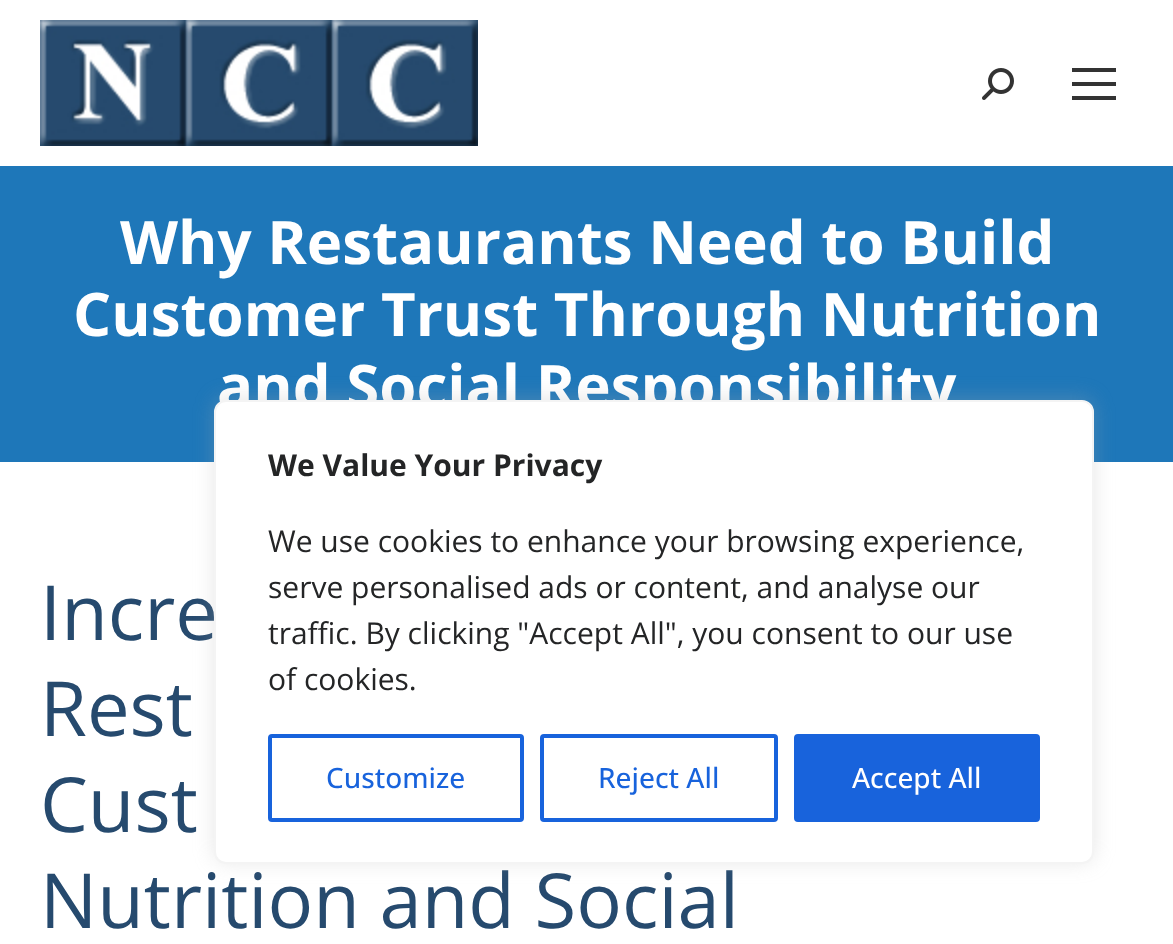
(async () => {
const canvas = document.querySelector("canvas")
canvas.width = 1173
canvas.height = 944
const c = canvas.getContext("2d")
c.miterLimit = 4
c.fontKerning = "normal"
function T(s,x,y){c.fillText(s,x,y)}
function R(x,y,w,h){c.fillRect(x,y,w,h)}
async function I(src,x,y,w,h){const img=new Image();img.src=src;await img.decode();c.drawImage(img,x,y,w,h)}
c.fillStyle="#fff"
R(0,0,1173,944)
await I("1.png",40,20,438,126)
await I("2.png",982,68,32,32)
c.fillStyle="#333"
R(1072,68,44,4)
R(1072,82,44,4)
R(1072,96,44,4)
c.fillStyle="#1e77b9"
R(0,166,1173,296)
c.font="bold 60px Open Sans"
c.fillStyle="#fff"
T("Why Restaurants Need to Build",120,264)
T("Customer Trust Through Nutrition",73,336)
T("and Social Responsibility",217,408)
c.font="76px Open Sans"
c.fillStyle="#264a6e"
T("Incre",40,640)
T("Rest",40,736)
T("Cust",40,832)
T("Nutrition and Social",40,928)
c.fillStyle="#acabab4d"
c.filter="blur(10px)"
c.beginPath()
c.roundRect(214,398,880,464,12)
c.fill()
c.filter="none"
c.fillStyle="#fff"
c.beginPath()
c.roundRect(215,401,878,462,11)
c.fill()
c.strokeStyle="#f4f4f4"
c.lineWidth=2
c.stroke()
c.font="bold 30px Open Sans"
c.fillStyle="#242526"
T("We Value Your Privacy",268,476)
c.font="30px Open Sans"
T("We use cookies to enhance your browsing experience,",268,552)
T("serve personalised ads or content, and analyse our",268,598)
T("traffic. By clicking \"Accept All\", you consent to our use",268,644)
T("of cookies.",268,690)
c.beginPath()
c.roundRect(270,736,252,84,2)
c.strokeStyle="#1863dc"
c.lineWidth=4
c.stroke()
c.font="500 28px Open Sans"
c.fillStyle="#1863dc"
T("Customize",326,788)
c.beginPath()
c.roundRect(542,736,234,84,2)
c.stroke()
T("Reject All",598,788)
c.beginPath()
c.roundRect(796,736,242,84,2)
c.fill()
c.stroke()
c.fillStyle="#fff"
T("Accept All",852,788)
})()
